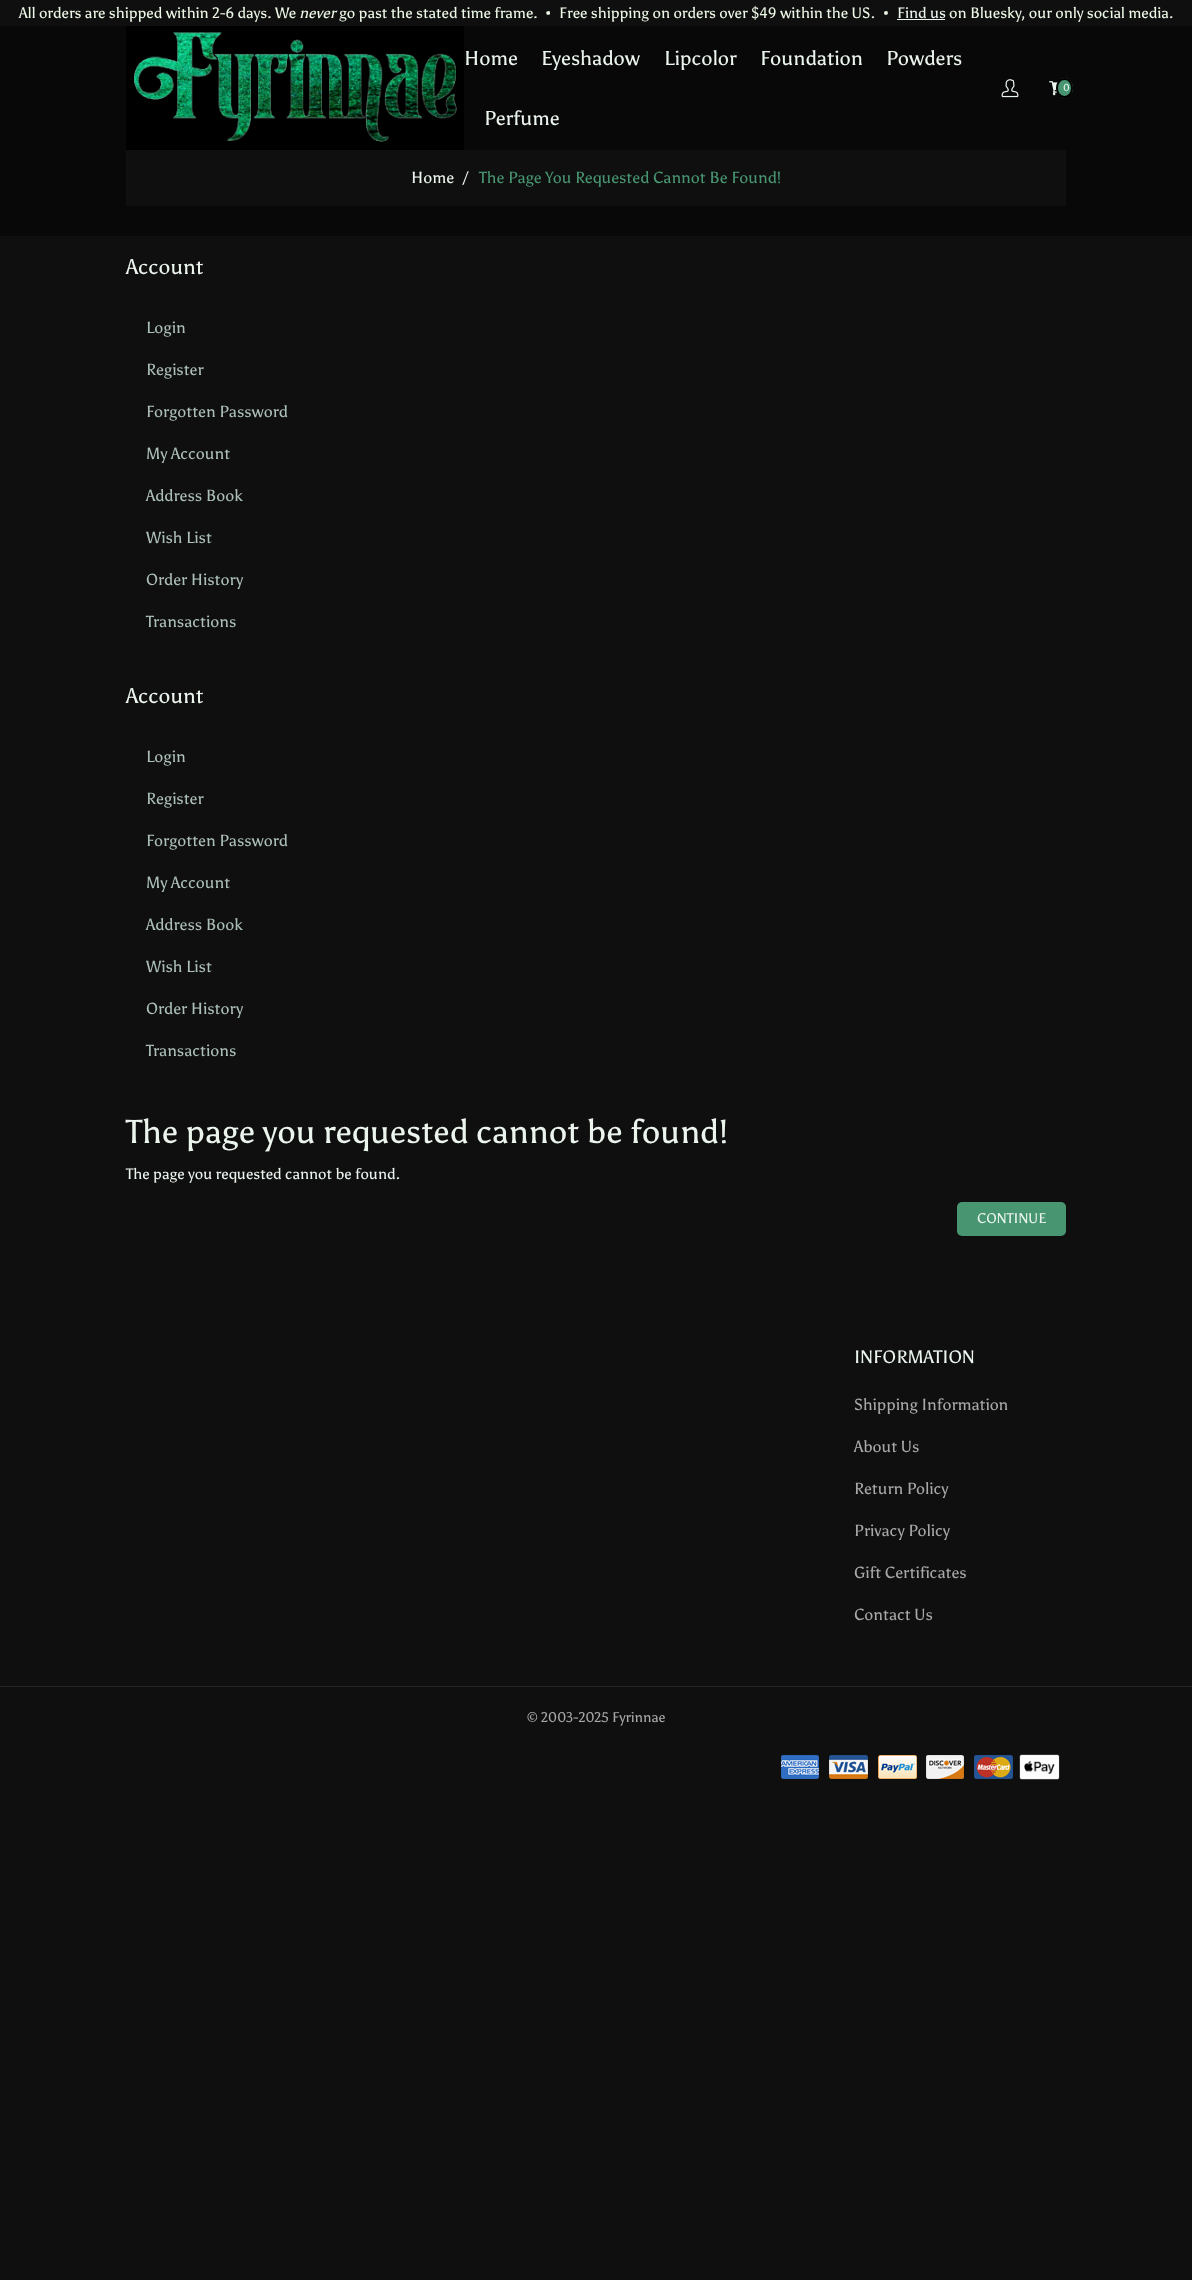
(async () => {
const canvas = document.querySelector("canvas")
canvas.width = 1192
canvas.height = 2280
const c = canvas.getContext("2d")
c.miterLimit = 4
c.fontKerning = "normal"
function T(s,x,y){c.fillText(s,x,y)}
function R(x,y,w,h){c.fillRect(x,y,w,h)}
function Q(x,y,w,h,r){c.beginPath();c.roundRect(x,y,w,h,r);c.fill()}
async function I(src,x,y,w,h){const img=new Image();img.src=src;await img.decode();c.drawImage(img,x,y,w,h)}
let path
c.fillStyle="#0f0f0f"
R(0,0,1192,2280)
c.font="15px Asul"
c.fillStyle="#ecf8e6"
T("All orders are shipped within 2-6 days. We",19,18)
c.font="italic 15px Asul"
T("never",299,18)
c.font="15px Asul"
T("go past the stated time frame.  •  Free shipping on orders over $49 within the US.  •",339,18)
c.fillStyle="#ebf5ee"
T("Find us",897,18)
R(897,19,48,1)
c.fillStyle="#ecf8e6"
T("on Bluesky, our only social media.",949,18)
c.fillStyle="#080808"
R(0,26,1192,210)
await I("1.png",126,26,338,124)
c.font="20px Asul"
c.fillStyle="#ebf5ee"
T("Home",464,65)
T("Eyeshadow",541,65)
T("Lipcolor",664,65)
T("Foundation",760,65)
T("Powders",886,65)
T("Perfume",484,125)
await I("2.png",1001,79,18,19)
await I("3.png",1049,81,9,15)
c.fillStyle="#489572"
c.beginPath()
c.ellipse(1064.5,88,8.5,10,0,0,7)
c.fill()
path = new Path2D("M1064.5 79c10 0 10 18 0 18c-10 0-10-18 0-18z")
c.strokeStyle="#000"
c.lineWidth=2
c.stroke(path)
c.font="10px Asul"
c.fillStyle="#ebf5ee"
T("0",1063,91)
c.fillStyle="#0f0f0f"
R(126,150,940,56)
c.font="16px Asul"
c.fillStyle="#ebf5ee"
T("Home",411,183)
T("/",463,183)
c.fillStyle="#489572"
T("The Page You Requested Cannot Be Found!",479,183)
c.font="21px Asul"
c.fillStyle="#ebf5ee"
T("Account",126,274)
c.font="16px Asul"
c.fillStyle="#acbfb7"
T("Login",146,333)
T("Register",146,375)
T("Forgotten Password",146,417)
T("My Account",146,459)
T("Address Book",146,501)
T("Wish List",146,543)
T("Order History",146,585)
T("Transactions",146,627)
c.font="21px Asul"
c.fillStyle="#ebf5ee"
T("Account",126,703)
c.font="16px Asul"
c.fillStyle="#acbfb7"
T("Login",146,762)
T("Register",146,804)
T("Forgotten Password",146,846)
T("My Account",146,888)
T("Address Book",146,930)
T("Wish List",146,972)
T("Order History",146,1014)
T("Transactions",146,1056)
c.font="33px Asul"
c.fillStyle="#ebf5ee"
T("The page you requested cannot be found!",126,1143)
c.font="15px Asul"
T("The page you requested cannot be found.",126,1179)
c.fillStyle="#489572"
Q(957,1202,109,34,5)
c.font="14px Asul"
c.fillStyle="#ebf5ee"
T("CONTINUE",977,1223)
c.font="18px Asul"
T("INFORMATION",854,1363)
c.font="16px Asul"
c.fillStyle="#a8a8a8"
T("Shipping Information",854,1410)
T("About Us",854,1452)
T("Return Policy",854,1494)
T("Privacy Policy",854,1536)
T("Gift Certificates",854,1578)
T("Contact Us",854,1620)
c.fillStyle="#252525"
R(0,1686,1192,1)
c.font="14px Asul"
c.fillStyle="#a8a8a8"
T("© 2003-2025 Fyrinnae",527,1722)
await I("4.png",781,1755,232,24)
await I("5.png",1019,1754,41,26)
})()
